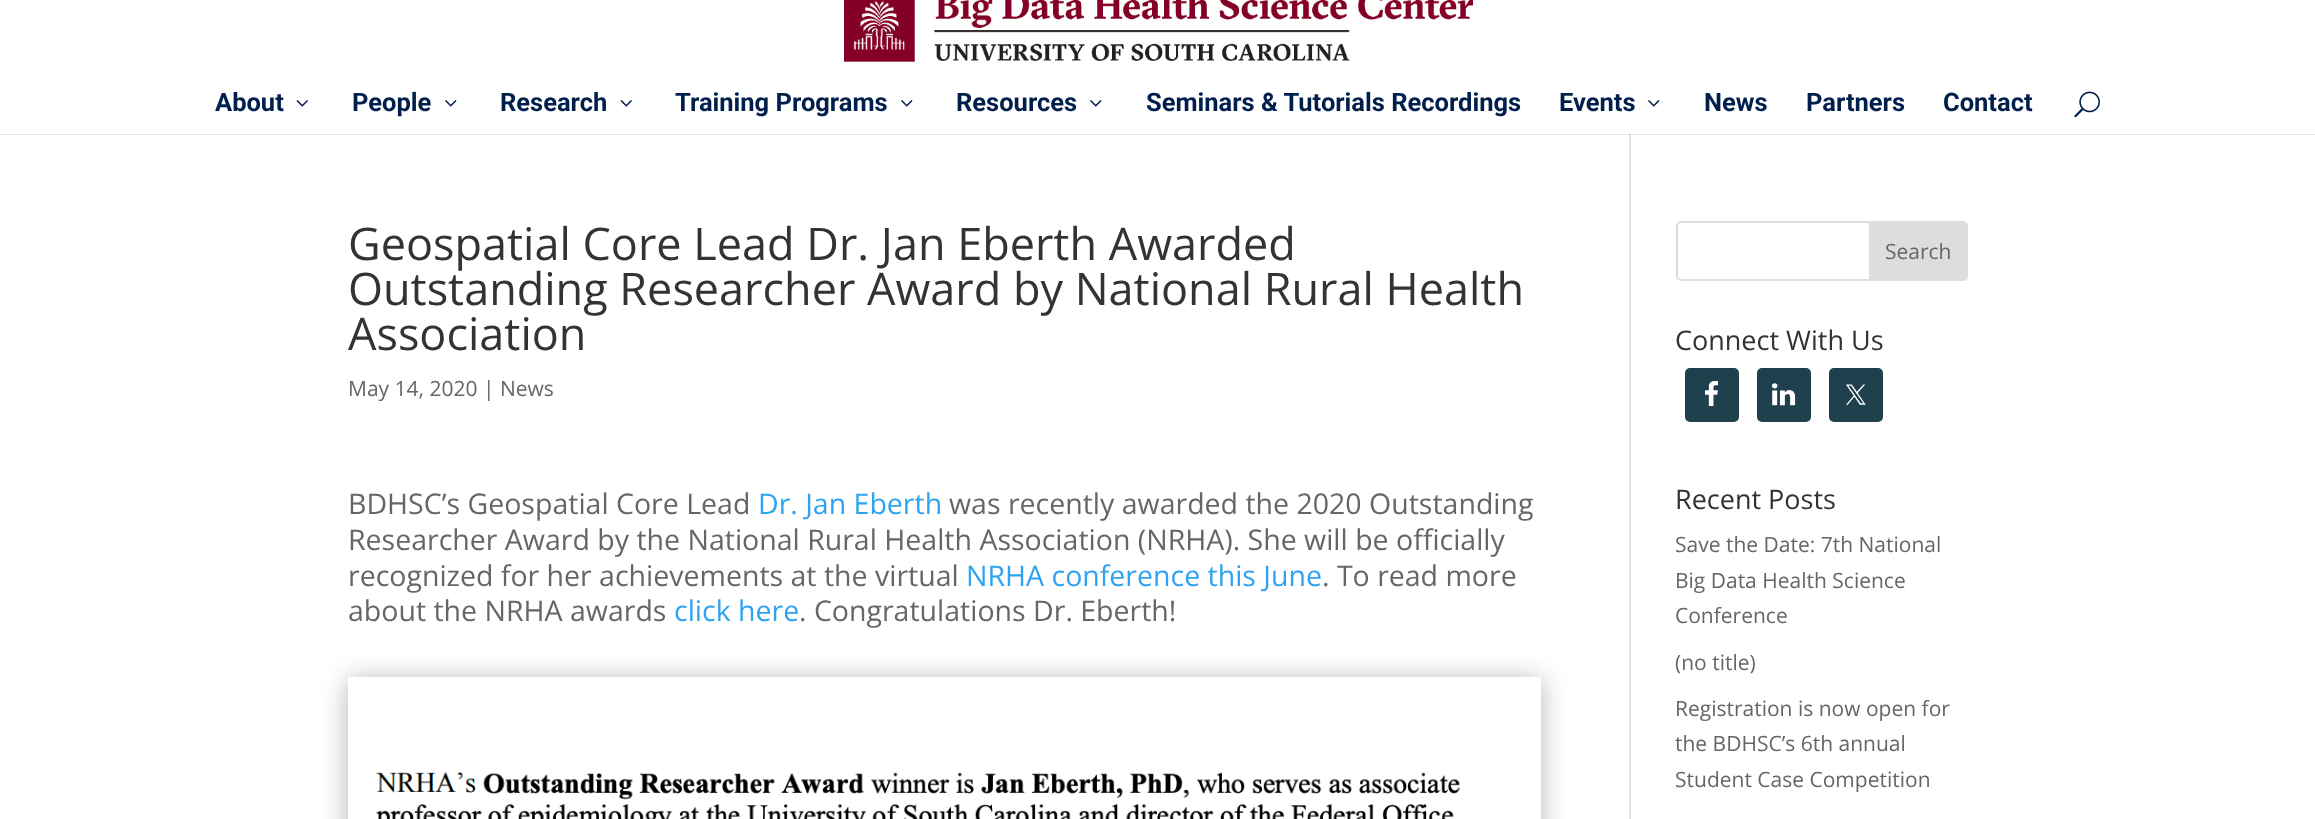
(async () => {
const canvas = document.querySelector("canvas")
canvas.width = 2315
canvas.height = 819
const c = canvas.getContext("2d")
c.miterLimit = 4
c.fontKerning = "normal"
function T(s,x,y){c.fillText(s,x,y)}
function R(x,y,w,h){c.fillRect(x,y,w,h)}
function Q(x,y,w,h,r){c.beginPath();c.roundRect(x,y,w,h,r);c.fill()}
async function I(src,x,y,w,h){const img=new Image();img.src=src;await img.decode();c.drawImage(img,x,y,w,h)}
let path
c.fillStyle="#fff"
R(0,0,2315,819)
c.fillStyle="#e6e6e6"
R(0,134,2315,1)
await I("1.png",844,0,629,62)
c.font="bold 25.5px Roboto"
c.fillStyle="#001f4c"
T("About",215,111)
await I("2.png",296,100,12,7)
T("People",352,111)
await I("3.png",445,100,12,7)
T("Research",500,111)
await I("2.png",620,100,12,7)
T("Training Programs",675,111)
await I("3.png",901,100,12,7)
T("Resources",956,111)
await I("3.png",1090,100,12,7)
T("Seminars & Tutorials Recordings",1146,111)
T("Events",1559,111)
await I("3.png",1648,100,12,7)
T("News",1704,111)
T("Partners",1806,111)
T("Contact",1943,111)
await I("4.png",2074,91,26,27)
c.fillStyle="#e2e2e2"
R(1629,134,2,685)
c.fillStyle="#cbcbcb"
R(1629,134,2,1)
c.font="45px Open Sans"
c.fillStyle="#333"
T("Geospatial Core Lead Dr. Jan Eberth Awarded",348,260)
T("Outstanding Researcher Award by National Rural Health",348,305)
T("Association",348,350)
c.font="21px Open Sans"
c.fillStyle="#666"
T("May 14, 2020 | News",348,396)
c.font="28.5px Open Sans"
T("BDHSC’s Geospatial Core Lead",348,514)
c.fillStyle="#2ea3f2"
T("Dr. Jan Eberth",758,514)
c.fillStyle="#666"
T("was recently awarded the 2020 Outstanding",949,514)
T("Researcher Award by the National Rural Health Association (NRHA). She will be officially",348,550)
T("recognized for her achievements at the virtual",348,586)
c.fillStyle="#2ea3f2"
T("NRHA conference this June",966,586)
c.fillStyle="#666"
T(". To read more",1322,586)
T("about the NRHA awards",348,621)
c.fillStyle="#2ea3f2"
T("click here",674,621)
c.fillStyle="#666"
T(". Congratulations Dr. Eberth!",799,621)
c.save()
path = new Path2D("M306 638h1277v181h-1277zm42 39h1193v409h-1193z")
c.clip(path,"evenodd")
c.fillStyle="#0000004d"
c.filter="blur(13.5px)"
c.beginPath()
c.rect(348,680,1193,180)
c.fill()
c.filter="none"
c.restore()
await I("5.png",375,757,1166,62)
c.beginPath()
c.roundRect(1677,222,290,58,4)
c.strokeStyle="#ddd"
c.lineWidth=2
c.stroke()
c.fillStyle="#ddd"
c.beginPath()
c.roundRect(1870,222,97,58,[0,4,4,0])
c.fill()
c.stroke()
c.font="21px Open Sans"
c.fillStyle="#666"
T("Search",1885,259)
c.font="27px Open Sans"
c.fillStyle="#333"
T("Connect With Us",1675,350)
c.fillStyle="#1f414d"
Q(1685,368,54,54,5)
await I("6.png",1705,381,13,25)
Q(1757,368,54,54,5)
await I("7.png",1772,383,24,23)
Q(1829,368,54,54,5)
await I("8.png",1846,384,20,21)
c.fillStyle="#333"
T("Recent Posts",1675,509)
c.font="21px Open Sans"
c.fillStyle="#666"
T("Save the Date: 7th National",1675,552)
T("Big Data Health Science",1675,588)
T("Conference",1675,623)
T("(no title)",1675,670)
T("Registration is now open for",1675,716)
T("the BDHSC’s 6th annual",1675,751)
T("Student Case Competition",1675,787)
})()
